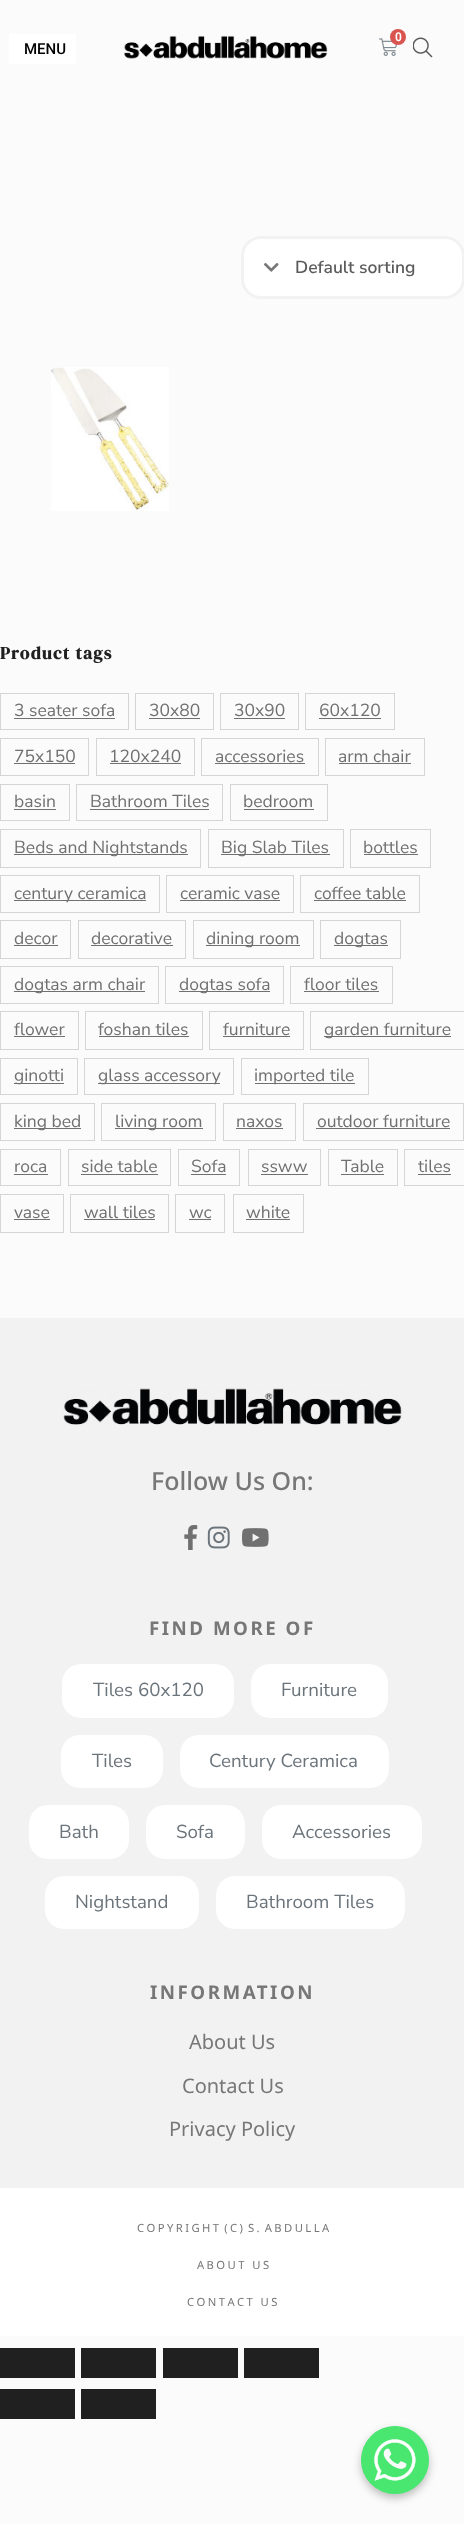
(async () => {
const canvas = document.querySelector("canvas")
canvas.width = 464
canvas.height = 2524
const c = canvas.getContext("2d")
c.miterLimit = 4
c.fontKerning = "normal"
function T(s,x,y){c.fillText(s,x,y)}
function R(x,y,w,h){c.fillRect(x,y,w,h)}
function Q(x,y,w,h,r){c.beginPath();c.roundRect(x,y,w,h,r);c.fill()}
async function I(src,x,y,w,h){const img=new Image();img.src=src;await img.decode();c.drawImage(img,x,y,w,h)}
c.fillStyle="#fbfbfb"
R(0,0,464,2524)
c.fillStyle="#fff"
R(9,34,67,30)
c.font="500 15px Roboto"
c.fillStyle="#000"
T("MENU",24,54)
await I("1.png",124,35,204,24)
await I("2.png",379,38,18,18)
c.fillStyle="#d9534f"
c.beginPath()
c.arc(398,37,8,0,7)
c.fill()
c.font="600 12px Roboto"
c.fillStyle="#fff"
T("0",395,41)
await I("3.png",413,37,20,21)
Q(241,236,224,63,20)
await I("4.png",264,263,15,9)
c.beginPath()
c.roundRect(242.5,237.5,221,60,18.5)
c.strokeStyle="#f2f2f2"
c.lineWidth=3
c.stroke()
c.font="600 17.5px Nunito Sans"
c.fillStyle="#5b5b5b"
T("Default sorting",295,273)
await I("5.png",51,367,118,144)
c.letterSpacing="1.25px"
c.font="bold 17.5px DM Serif Display"
c.fillStyle="#202020"
T("Product tags",0,659)
c.strokeStyle="#d5d5d5"
c.lineWidth=1
c.strokeRect(.5,693.5,128,36)
c.letterSpacing="0px"
c.font="17.5px Nunito Sans"
c.fillStyle="#707070"
T("3 seater sofa",14,716)
R(14,718,101,1)
c.strokeRect(135.5,693.5,78,36)
T("30x80",149,716)
R(149,718,51,1)
c.strokeRect(220.5,693.5,78,36)
T("30x90",234,716)
R(234,718,51,1)
c.strokeRect(305.5,693.5,89,36)
T("60x120",319,716)
R(319,718,62,1)
c.strokeRect(.5,738.5,88,37)
T("75x150",14,762)
R(14,763,61,1)
c.strokeRect(96.5,738.5,98,37)
T("120x240",109,762)
R(110,763,71,1)
c.strokeRect(201.5,738.5,117,37)
T("accessories",215,762)
R(215,763,90,1)
c.strokeRect(325.5,738.5,99,37)
T("arm chair",338,762)
R(339,763,72,1)
c.strokeRect(.5,784.5,69,36)
T("basin",14,807)
R(14,809,42,1)
c.strokeRect(76.5,784.5,146,36)
T("Bathroom Tiles",90,807)
R(90,809,119,1)
c.strokeRect(230.5,784.5,97,36)
T("bedroom",243,807)
R(244,809,70,1)
c.strokeRect(.5,829.5,200,38)
R(14,854,174,1)
T("Beds and Nightstands",14,853)
c.strokeRect(208.5,829.5,135,38)
R(221,854,109,1)
T("Big Slab Tiles",221,853)
c.strokeRect(350.5,829.5,80,38)
T("bottles",363,853)
R(364,854,54,1)
c.strokeRect(.5,875.5,159,37)
R(14,900,132,1)
T("century ceramica",14,899)
c.strokeRect(166.5,875.5,127,37)
T("ceramic vase",180,899)
R(180,900,100,1)
c.strokeRect(300.5,875.5,119,37)
T("coffee table",314,899)
R(314,900,92,1)
c.strokeRect(.5,920.5,70,38)
T("decor",14,944)
R(14,945,44,1)
c.strokeRect(78.5,920.5,107,38)
T("decorative",91,944)
R(91,945,82,1)
c.strokeRect(193.5,920.5,120,38)
R(206,945,94,1)
T("dining room",206,944)
c.strokeRect(320.5,920.5,80,38)
R(334,945,54,1)
T("dogtas",334,944)
c.strokeRect(.5,966.5,158,37)
R(14,991,131,1)
T("dogtas arm chair",14,990)
c.strokeRect(165.5,966.5,118,37)
R(179,991,91,1)
T("dogtas sofa",179,990)
c.strokeRect(290.5,966.5,102,37)
T("floor tiles",304,990)
R(304,991,75,1)
c.strokeRect(.5,1011.5,78,38)
T("flower",14,1035)
R(14,1036,51,1)
c.strokeRect(85.5,1011.5,117,38)
T("foshan tiles",98,1035)
R(99,1036,90,1)
c.strokeRect(209.5,1011.5,94,38)
T("furniture",223,1035)
R(223,1036,67,1)
c.strokeRect(310.5,1011.5,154,38)
R(324,1036,127,1)
T("garden furniture",324,1035)
c.strokeRect(.5,1058.5,77,36)
R(14,1083,50,1)
T("ginotti",14,1081)
c.strokeRect(84.5,1058.5,149,36)
R(98,1083,122,1)
T("glass accessory",98,1081)
c.strokeRect(241.5,1058.5,127,36)
R(255,1083,100,1)
T("imported tile",254,1081)
c.strokeRect(.5,1103.5,94,37)
R(14,1128,67,1)
T("king bed",14,1127)
c.strokeRect(101.5,1103.5,114,37)
R(115,1128,88,1)
T("living room",115,1127)
c.strokeRect(223.5,1103.5,72,37)
T("naxos",236,1127)
R(236,1128,47,1)
c.strokeRect(303.5,1103.5,160,37)
T("outdoor furniture",317,1127)
R(316,1128,134,1)
c.strokeRect(.5,1149.5,60,36)
T("roca",14,1172)
R(14,1174,34,1)
c.strokeRect(68.5,1149.5,102,36)
T("side table",81,1172)
R(81,1174,77,1)
c.strokeRect(178.5,1149.5,61,36)
T("Sofa",191,1172)
R(191,1174,35,1)
c.strokeRect(248.5,1149.5,72,36)
T("ssww",261,1172)
R(261,1174,47,1)
c.strokeRect(328.5,1149.5,69,36)
T("Table",341,1172)
R(341,1174,43,1)
c.strokeRect(404.5,1149.5,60,36)
T("tiles",418,1172)
R(418,1174,33,1)
c.strokeRect(.5,1194.5,63,38)
T("vase",14,1218)
R(14,1219,36,1)
c.strokeRect(70.5,1194.5,98,38)
T("wall tiles",84,1218)
R(84,1219,71,1)
c.strokeRect(175.5,1194.5,49,38)
T("wc",189,1218)
R(189,1219,22,1)
c.strokeRect(233.5,1194.5,70,38)
T("white",246,1218)
R(246,1219,44,1)
c.fillStyle="#f2f2f2"
R(0,1318,464,870)
await I("6.png",63,1388,339,37)
c.font="500 25px Noto Sans"
c.fillStyle="#787777"
T("Follow Us On:",151,1490)
await I("7.png",184,1525,14,25)
await I("8.png",207,1526,23,23)
await I("9.png",242,1528,27,19)
c.letterSpacing="2.5px"
c.font="bold 18.75px Noto Sans"
T("FIND MORE OF",149,1635)
c.fillStyle="#fff"
c.beginPath()
c.roundRect(61.5,1663.5,173,55,19.5)
c.fill()
c.strokeStyle="#f2f2f2"
c.stroke()
c.letterSpacing="0px"
c.font="18.75px Nunito Sans"
c.fillStyle="#6b747b"
T("Tiles 60x120",93,1696)
c.fillStyle="#fff"
c.beginPath()
c.roundRect(250.5,1663.5,138,55,19.5)
c.fill()
c.stroke()
c.fillStyle="#6b747b"
T("Furniture",281,1696)
c.fillStyle="#fff"
c.beginPath()
c.roundRect(60.5,1734.5,103,54,19.5)
c.fill()
c.stroke()
c.fillStyle="#6b747b"
T("Tiles",92,1767)
c.fillStyle="#fff"
c.beginPath()
c.roundRect(179.5,1734.5,210,54,19.5)
c.fill()
c.stroke()
c.fillStyle="#6b747b"
T("Century Ceramica",209,1767)
c.fillStyle="#fff"
c.beginPath()
c.roundRect(28.5,1804.5,101,55,19.5)
c.fill()
c.stroke()
c.fillStyle="#6b747b"
T("Bath",59,1838)
c.fillStyle="#fff"
c.beginPath()
c.roundRect(145.5,1804.5,100,55,19.5)
c.fill()
c.stroke()
c.fillStyle="#6b747b"
T("Sofa",176,1838)
c.fillStyle="#fff"
c.beginPath()
c.roundRect(261.5,1804.5,161,55,19.5)
c.fill()
c.stroke()
c.fillStyle="#6b747b"
T("Accessories",292,1838)
c.fillStyle="#fff"
c.beginPath()
c.roundRect(44.5,1875.5,155,54,19.5)
c.fill()
c.stroke()
c.fillStyle="#6b747b"
T("Nightstand",75,1908)
c.fillStyle="#fff"
c.beginPath()
c.roundRect(215.5,1875.5,190,54,19.5)
c.fill()
c.stroke()
c.fillStyle="#6b747b"
T("Bathroom Tiles",246,1908)
c.letterSpacing="2.5px"
c.font="bold 18.75px Noto Sans"
c.fillStyle="#787777"
T("INFORMATION",150,1999)
c.letterSpacing="0px"
c.font="20px Noto Sans"
T("About Us",189,2049)
T("Contact Us",182,2093)
T("Privacy Policy",169,2136)
c.fillStyle="#fff"
R(0,2188,464,148)
c.letterSpacing="-0.25px"
c.font="11.25px Noto Sans"
c.fillStyle="#787777"
T("C O P Y R I G H T  ( C )  S .  A B D U L L A",137,2232)
T("A B O U T   U S",197,2269)
T("C O N T A C T   U S",187,2306)
c.fillStyle="#202020"
R(0,2348,75,30)
R(81,2348,75,30)
R(163,2348,75,30)
R(244,2348,75,30)
R(0,2389,75,30)
R(81,2389,75,30)
c.fillStyle="#00000040"
c.filter="blur(4px)"
c.beginPath()
c.roundRect(361,2430,68,68,34)
c.fill()
c.filter="none"
c.fillStyle="#49e670"
c.beginPath()
c.arc(395,2460,34,0,7)
c.fill()
await I("10.png",361,2426,68,68)
})()
